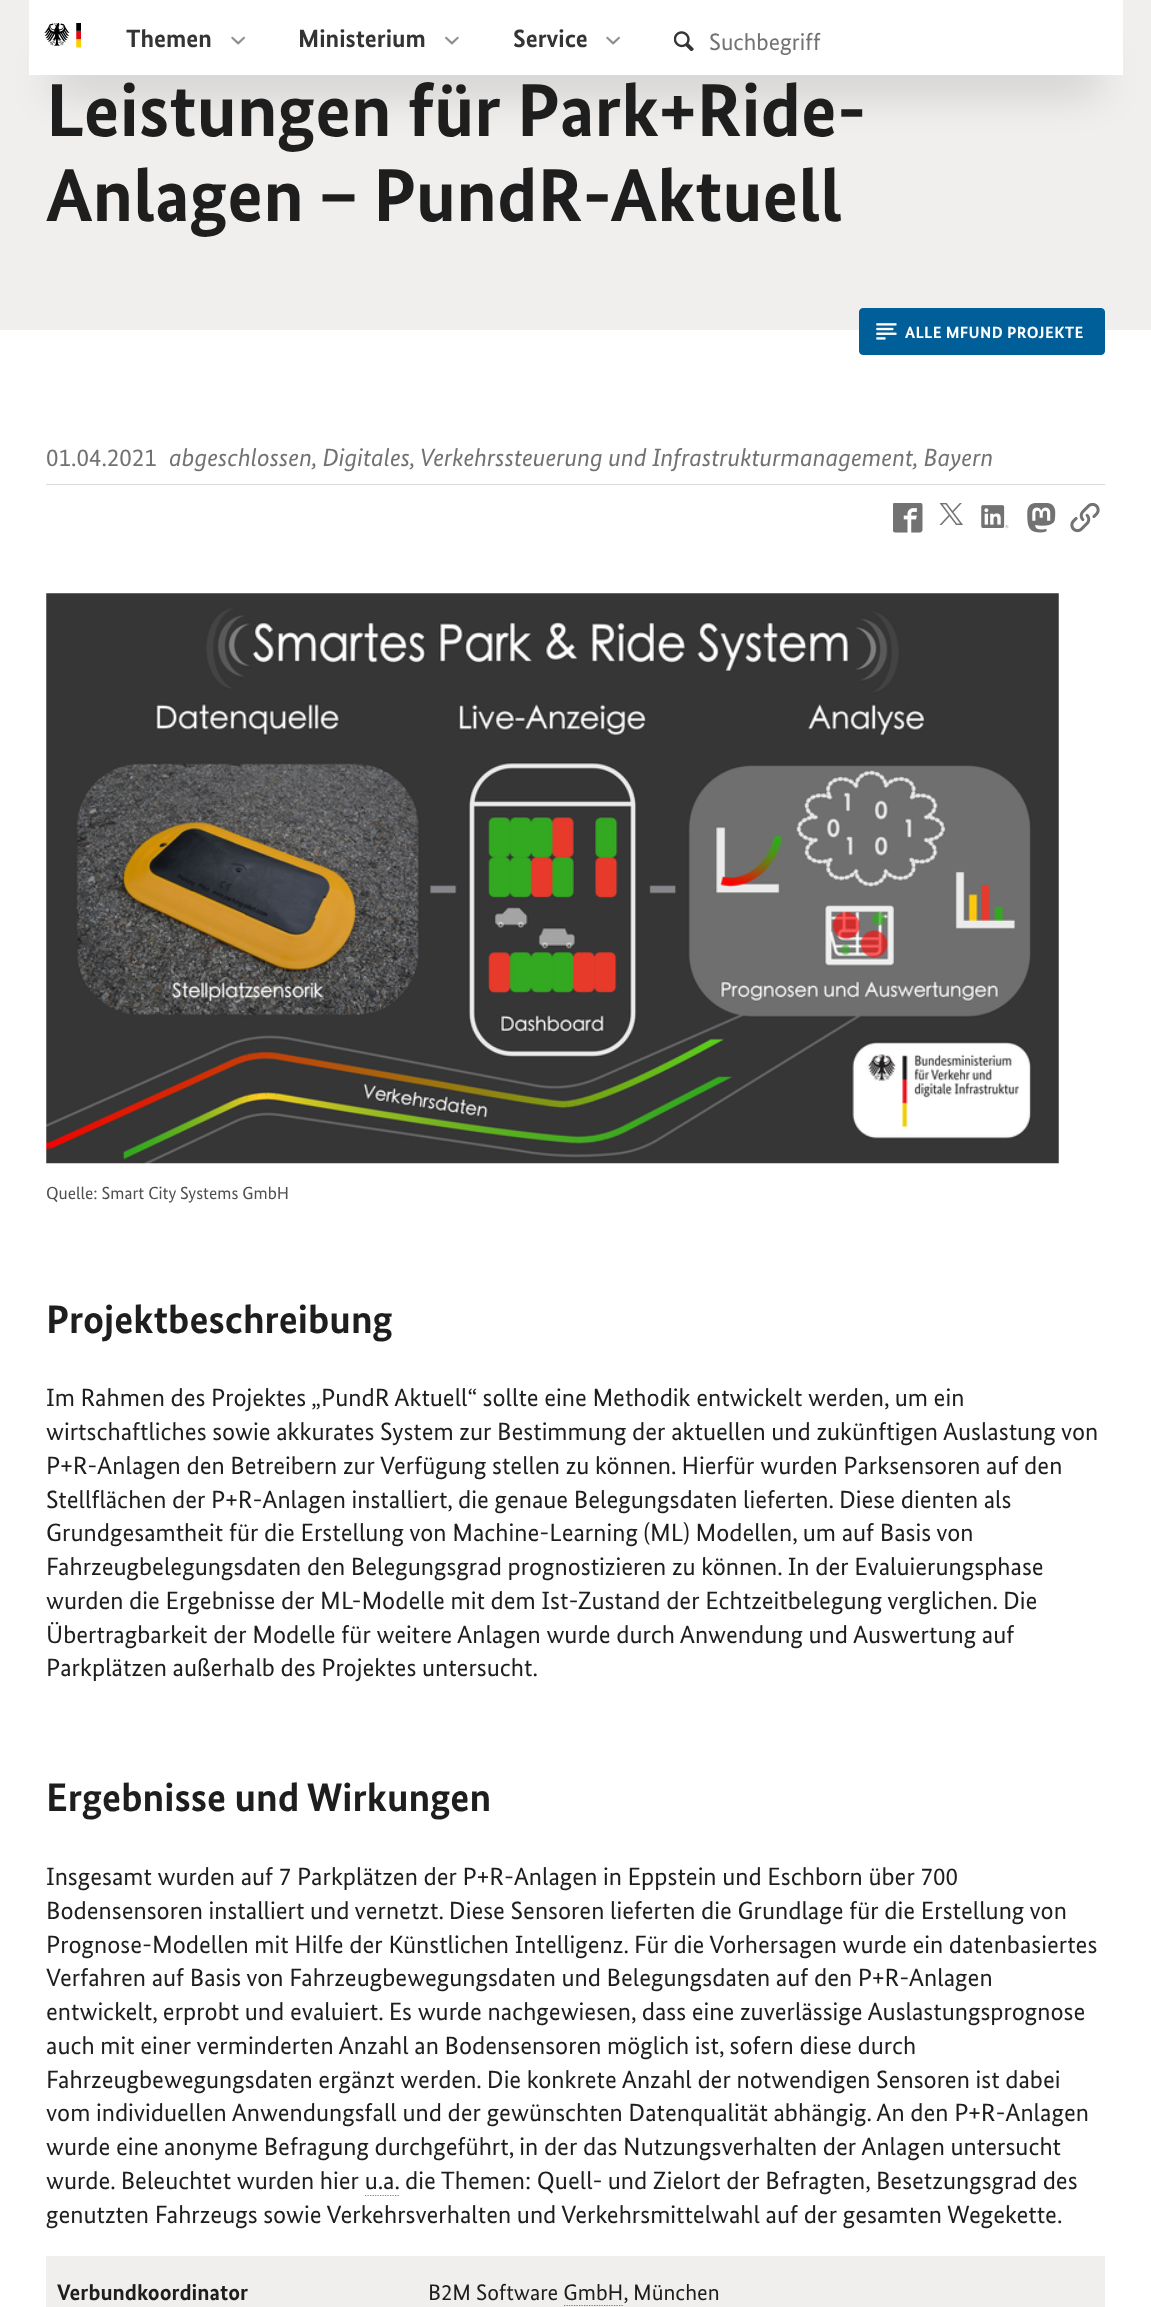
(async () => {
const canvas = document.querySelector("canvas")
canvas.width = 1151
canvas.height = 2307
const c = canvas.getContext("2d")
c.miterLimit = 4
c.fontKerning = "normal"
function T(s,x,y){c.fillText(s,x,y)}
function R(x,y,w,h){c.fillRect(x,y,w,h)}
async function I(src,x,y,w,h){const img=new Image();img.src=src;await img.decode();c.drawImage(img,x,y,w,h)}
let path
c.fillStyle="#fff"
R(0,0,1151,2307)
c.fillStyle="#f0efed"
R(0,0,1151,330)
c.fillStyle="#0000002e"
c.filter="blur(20.5px)"
c.beginPath()
c.rect(53,63,1046,27)
c.fill()
c.filter="none"
c.fillStyle="#fff"
R(29,0,1094,75)
await I("1.png",44,23,26,23)
await I("2.png",76,23,5,25)
c.font="bold 25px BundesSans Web"
c.fillStyle="#343434"
T("Themen",126,47)
await I("3.png",231,36,14,9)
T("Ministerium",298,47)
await I("4.png",445,36,14,9)
T("Service",513,47)
await I("3.png",606,36,14,9)
await I("5.png",674,31,20,20)
c.font="23.75px BundesSans Web"
c.fillStyle="#727272"
T("Suchbegriff",709,50)
c.font="bold 75px BundesSans Web"
c.fillStyle="#1e1e1e"
T("Leistungen für Park+Ride-",46,136)
T("Anlagen – PundR-Aktuell",46,221)
c.fillStyle="#005e99"
c.beginPath()
c.roundRect(859.5,308.5,245,46,3.5)
c.fill()
c.strokeStyle="#005e99"
c.stroke()
await I("6.png",876,323,21,17)
c.letterSpacing="0.4px"
c.font="bold 16.25px BundesSans Web"
c.fillStyle="#fff"
T("ALLE MFUND PROJEKTE",905,338)
c.fillStyle="#d9d9d9"
R(46,484,1059,1)
c.letterSpacing="0px"
c.font="25px BundesSans Web"
c.fillStyle="#727272"
T("01.04.2021",46,466)
c.font="italic 25px BundesSans Web"
T("abgeschlossen, Digitales, Verkehrssteuerung und Infrastrukturmanagement, Bayern",169,466)
await I("7.png",893,503,30,30)
await I("8.png",939,503,24,22)
await I("9.png",981,505,28,24)
await I("10.png",1027,503,29,30)
await I("11.png",1070,503,30,30)
await I("12.png",46,593,1013,571)
c.font="17.5px BundesSans Web"
c.fillStyle="#505050"
T("Quelle: Smart City Systems GmbH",46,1199)
c.font="bold 40px BundesSans Web"
c.fillStyle="#1e1e1e"
T("Projektbeschreibung",46,1333)
c.font="25px BundesSans Web"
T("Im Rahmen des Projektes „PundR Aktuell“ sollte eine Methodik entwickelt werden, um ein",46,1406)
T("wirtschaftliches sowie akkurates System zur Bestimmung der aktuellen und zukünftigen Auslastung von",46,1440)
T("P+R-Anlagen den Betreibern zur Verfügung stellen zu können. Hierfür wurden Parksensoren auf den",46,1474)
T("Stellflächen der P+R-Anlagen installiert, die genaue Belegungsdaten lieferten. Diese dienten als",46,1508)
T("Grundgesamtheit für die Erstellung von Machine-Learning (ML) Modellen, um auf Basis von",46,1541)
T("Fahrzeugbelegungsdaten den Belegungsgrad prognostizieren zu können. In der Evaluierungsphase",46,1575)
T("wurden die Ergebnisse der ML-Modelle mit dem Ist-Zustand der Echtzeitbelegung verglichen. Die",46,1609)
T("Übertragbarkeit der Modelle für weitere Anlagen wurde durch Anwendung und Auswertung auf",46,1643)
T("Parkplätzen außerhalb des Projektes untersucht.",46,1676)
c.font="bold 40px BundesSans Web"
T("Ergebnisse und Wirkungen",46,1811)
c.font="25px BundesSans Web"
T("Insgesamt wurden auf 7 Parkplätzen der P+R-Anlagen in Eppstein und Eschborn über 700",46,1885)
T("Bodensensoren installiert und vernetzt. Diese Sensoren lieferten die Grundlage für die Erstellung von",46,1919)
T("Prognose-Modellen mit Hilfe der Künstlichen Intelligenz. Für die Vorhersagen wurde ein datenbasiertes",46,1953)
T("Verfahren auf Basis von Fahrzeugbewegungsdaten und Belegungsdaten auf den P+R-Anlagen",46,1986)
T("entwickelt, erprobt und evaluiert. Es wurde nachgewiesen, dass eine zuverlässige Auslastungsprognose",46,2020)
T("auch mit einer verminderten Anzahl an Bodensensoren möglich ist, sofern diese durch",46,2054)
T("Fahrzeugbewegungsdaten ergänzt werden. Die konkrete Anzahl der notwendigen Sensoren ist dabei",46,2088)
T("vom individuellen Anwendungsfall und der gewünschten Datenqualität abhängig. An den P+R-Anlagen",46,2121)
T("wurde eine anonyme Befragung durchgeführt, in der das Nutzungsverhalten der Anlagen untersucht",46,2155)
T("wurde. Beleuchtet wurden hier u.a.",46,2189)
T("die Themen: Quell- und Zielort der Befragten, Besetzungsgrad des",405,2189)
path = new Path2D("M365 2195.5h35")
c.strokeStyle="#808080"
c.lineWidth=1.2
c.setLineDash([1.25,1.25])
c.stroke(path)
T("genutzten Fahrzeugs sowie Verkehrsverhalten und Verkehrsmittelwahl auf der gesamten Wegekette.",46,2223)
c.fillStyle="#f0efed"
R(46,2256,1059,51)
c.font="bold 22.5px BundesSans Web"
c.fillStyle="#1e1e1e"
T("Verbundkoordinator",57,2300)
c.font="22.5px BundesSans Web"
T("B2M Software GmbH, München",428,2300)
path = new Path2D("M564 2305.5h60")
c.strokeStyle="#787877"
c.stroke(path)
})()
